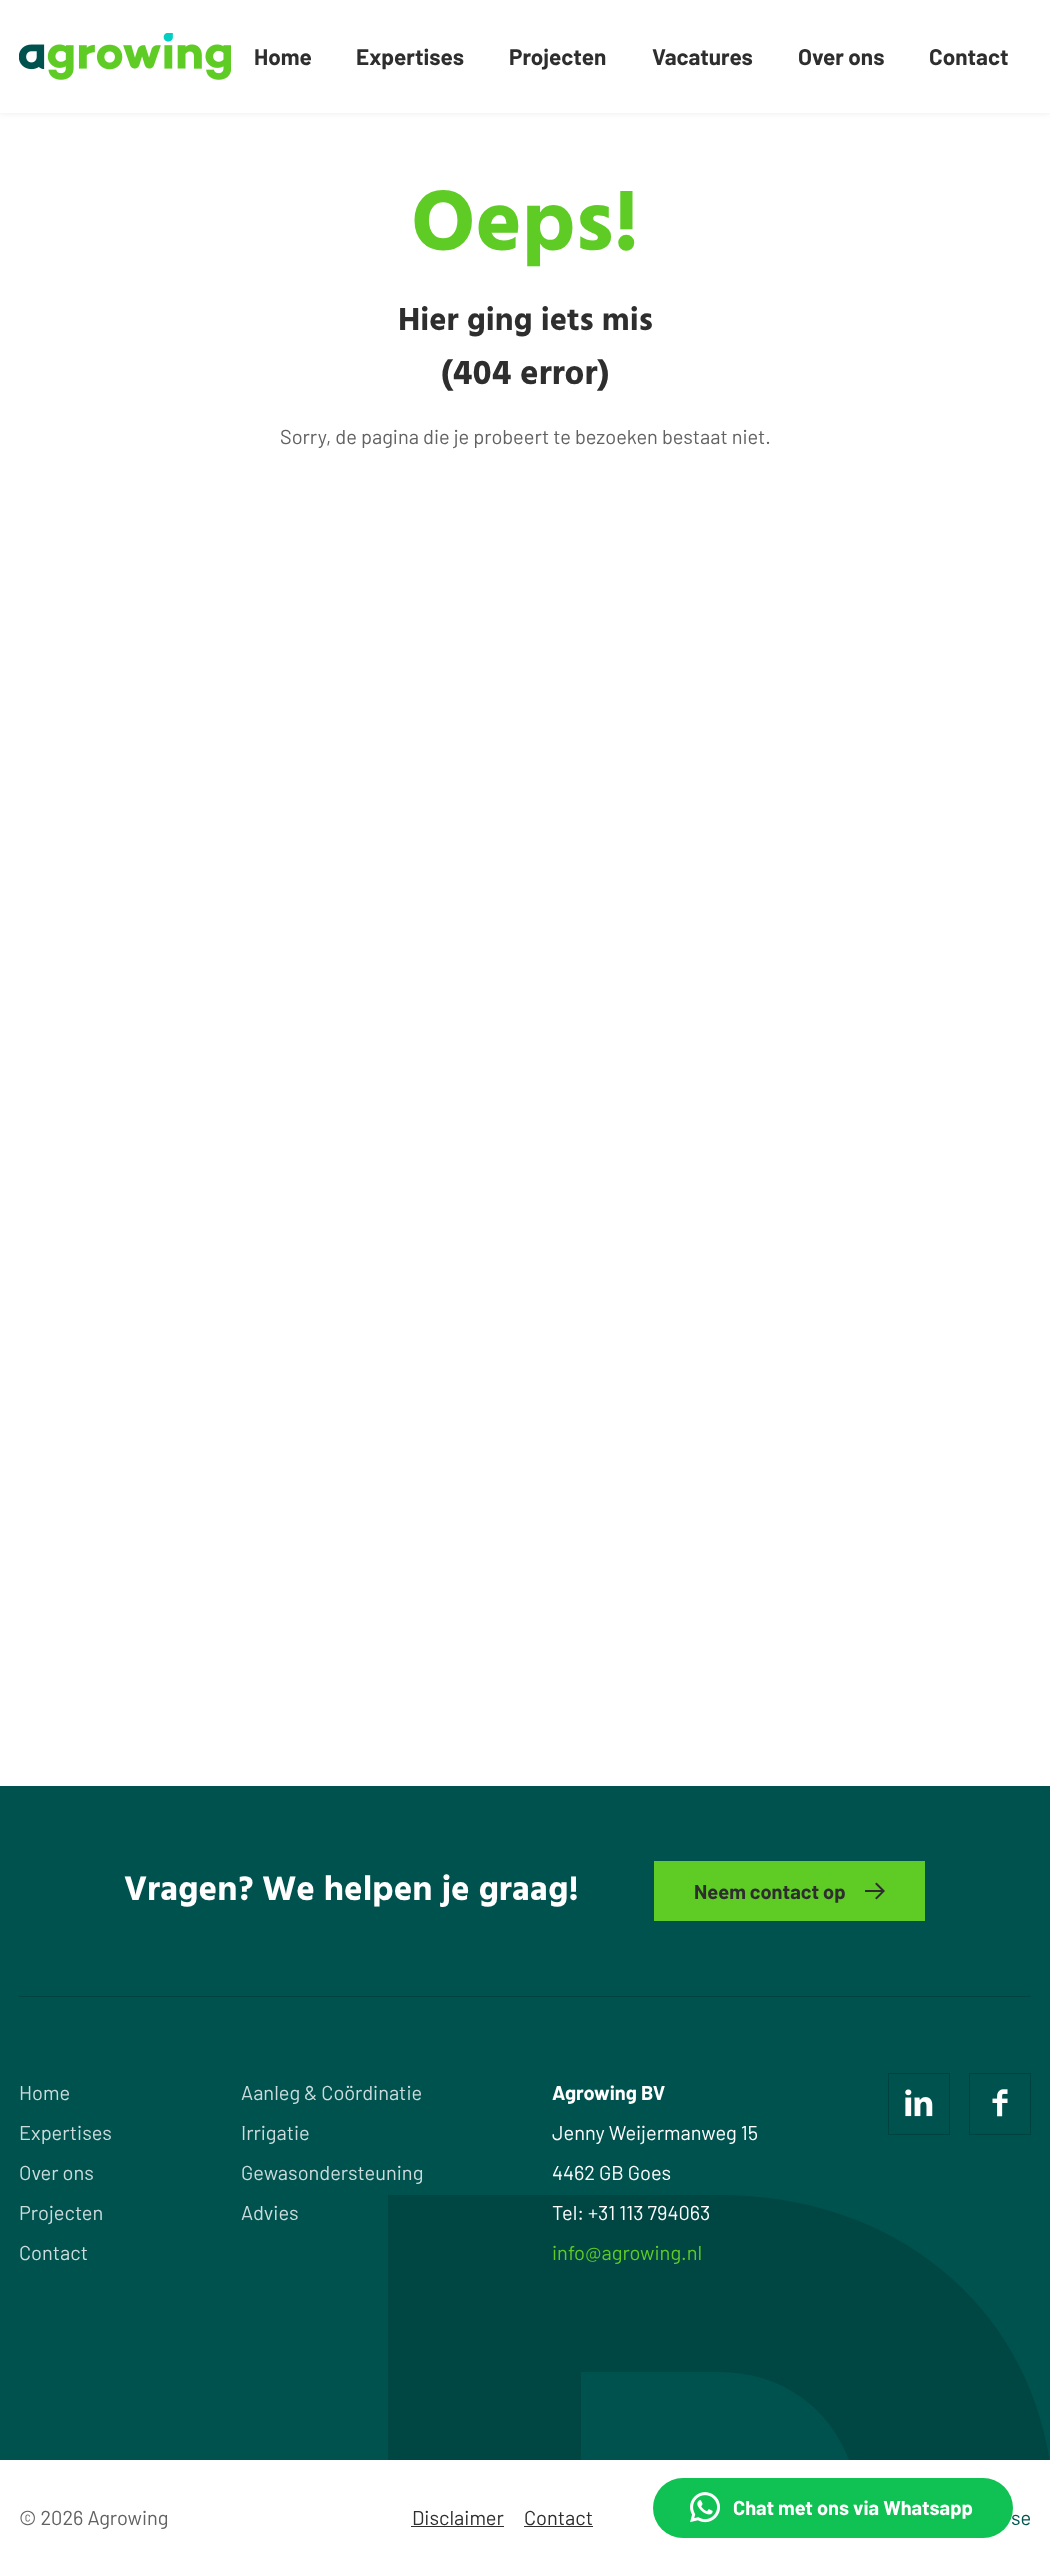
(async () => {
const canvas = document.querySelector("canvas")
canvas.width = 1050
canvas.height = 2574
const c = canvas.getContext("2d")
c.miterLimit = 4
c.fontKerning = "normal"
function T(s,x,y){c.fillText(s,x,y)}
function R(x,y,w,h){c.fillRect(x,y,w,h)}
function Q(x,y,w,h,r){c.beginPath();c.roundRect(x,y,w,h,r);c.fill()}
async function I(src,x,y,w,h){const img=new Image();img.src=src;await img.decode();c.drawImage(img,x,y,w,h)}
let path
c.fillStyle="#fff"
R(0,0,1050,2574)
c.fillStyle="#2e2e2e1a"
c.filter="blur(3px)"
c.beginPath()
c.rect(0,0,1050,113)
c.fill()
c.filter="none"
c.fillStyle="#fff"
R(0,0,1050,113)
await I("1.png",19,33,212,47)
c.font="bold 22.5px Barlow"
c.fillStyle="#2e2e2e"
T("Home",254,65)
T("Expertises",356,65)
T("Projecten",509,65)
T("Vacatures",652,65)
T("Over ons",798,65)
T("Contact",929,65)
c.font="bold 87.5px Hind"
c.fillStyle="#5ecc25"
T("Oeps!",411,250)
c.font="bold 32.5px Hind"
c.fillStyle="#2e2e2e"
T("Hier ging iets mis",398,330)
c.font="bold 35px Hind"
T("(404 error)",441,384)
c.font="20px Barlow"
c.fillStyle="#626262"
T("Sorry, de pagina die je probeert te bezoeken bestaat niet.",280,444)
c.fillStyle="#00524f"
R(0,1786,1050,674)
c.fillStyle="#004340"
R(19,1996,1012,1)
c.font="bold 35px Hind"
c.fillStyle="#fff"
T("Vragen? We helpen je graag!",124,1900)
c.fillStyle="#5ecc25"
R(654,1861,271,60)
c.font="bold 20px Barlow"
c.fillStyle="#2e2e2e"
T("Neem contact op",694,1899)
await I("2.png",865,1882,20,18)
c.save()
c.beginPath()
c.rect(388,2195,662,265)
c.clip()
c.fillStyle="#004744"
path = new Path2D("M719 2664c-82 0-138-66-138-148v-144h138c85 0 140 65 140 144c0 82-55 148-140 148m0-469h-331v320c0 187 138 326 331 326c76 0 143-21 197-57c35 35 84 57 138 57v-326c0-185-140-320-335-320")
c.fill(path,"evenodd")
c.restore()
c.font="20px Barlow"
c.fillStyle="#ccdcdc"
T("Home",19,2100)
T("Expertises",19,2140)
T("Over ons",19,2180)
T("Projecten",19,2220)
T("Contact",19,2260)
T("Aanleg & Coördinatie",241,2100)
T("Irrigatie",241,2140)
T("Gewasondersteuning",241,2180)
T("Advies",241,2220)
c.font="bold 20px Barlow"
c.fillStyle="#fff"
T("Agrowing BV",552,2100)
c.font="20px Barlow"
T("Jenny Weijermanweg 15",552,2140)
T("4462 GB Goes",552,2180)
T("Tel: +31 113 794063",552,2220)
c.fillStyle="#5ecc25"
T("info@agrowing.nl",552,2260)
c.strokeStyle="#00423f"
c.strokeRect(888.5,2073.5,61,61)
await I("3.png",905,2089,28,28)
c.strokeRect(969.5,2073.5,61,61)
await I("4.png",992,2089,16,28)
c.fillStyle="#00524f"
T("se",1011,2525)
c.fillStyle="#10c153"
Q(653,2478,360,60,30)
await I("5.png",690,2492,31,31)
c.font="bold 20px Barlow"
c.fillStyle="#fff"
T("Chat met ons via Whatsapp",733,2515)
c.font="20px Barlow"
c.fillStyle="#626262"
T("© 2026 Agrowing",19,2525)
c.fillStyle="#2e2e2e"
T("Disclaimer",412,2525)
R(411,2526,93,1)
T("Contact",524,2525)
R(524,2526,69,1)
})()
